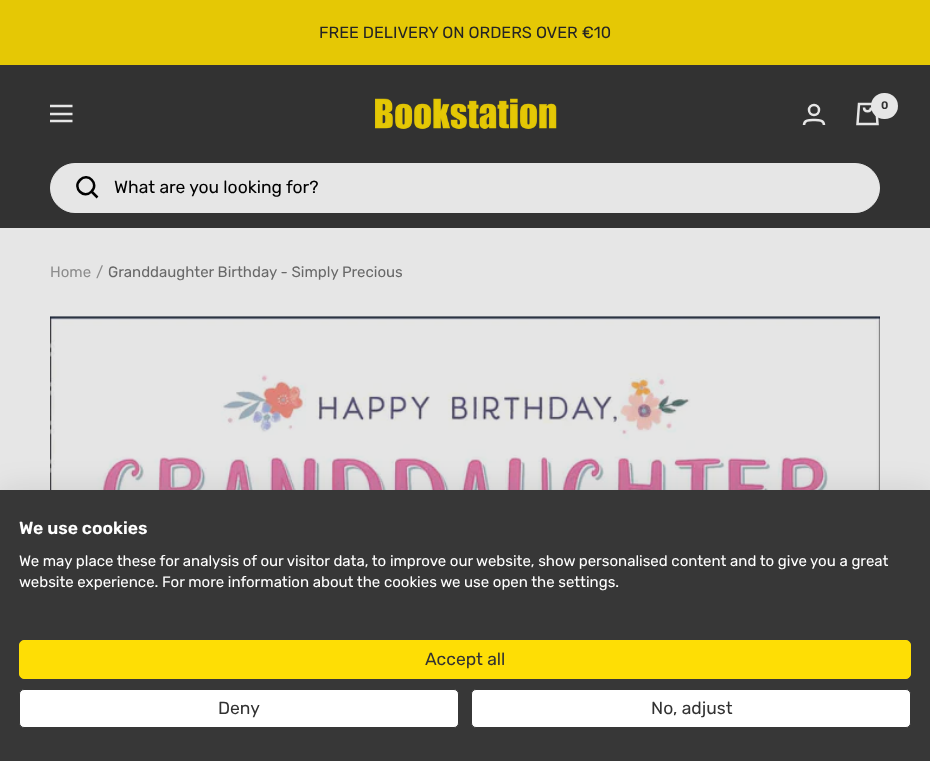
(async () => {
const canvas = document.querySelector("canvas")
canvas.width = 930
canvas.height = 761
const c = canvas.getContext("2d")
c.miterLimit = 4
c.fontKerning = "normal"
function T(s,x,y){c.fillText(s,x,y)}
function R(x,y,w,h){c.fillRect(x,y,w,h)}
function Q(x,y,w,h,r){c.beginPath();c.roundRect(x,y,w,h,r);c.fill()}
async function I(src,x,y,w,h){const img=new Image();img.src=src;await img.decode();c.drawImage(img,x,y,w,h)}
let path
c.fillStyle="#e6e6e6"
R(0,0,930,761)
c.fillStyle="#e5c805"
R(0,0,930,65)
c.font="16.25px Rubik"
c.fillStyle="#242424"
T("FREE DELIVERY ON ORDERS OVER €10",319,38)
c.fillStyle="#323232"
R(0,65,930,163)
path = new Path2D("M50 106h22.5m-22.5 15h22.5zm0-7h22.5z")
c.strokeStyle="#e6e6e6"
c.lineWidth=2.5
c.stroke(path)
await I("1.png",375,98,182,31)
c.beginPath()
c.arc(814,110,5,0,7)
c.stroke()
path = new Path2D("M804 125c0-5.5 6-5 10-5c3.5 0 10-.5 10 5")
c.stroke(path)
path = new Path2D("M859 104h17l1.5 20h-20zm5 3.5c0 5 7 5 7 0")
c.stroke(path)
c.fillStyle="#e6e6e6"
Q(871,93,27,26,13)
c.font="600 11px Rubik"
c.fillStyle="#323232"
T("0",881,109)
c.fillStyle="#e6e6e6"
c.beginPath()
c.roundRect(50.5,163.5,829,49,24.5)
c.fill()
c.lineWidth=1
c.stroke()
path = new Path2D("M91.5 191.5c8-7.5-3.5-19.5-11.5-11.5c-8 8 4 19.5 11.5 11.5zm0 0l6 6")
c.strokeStyle="#000"
c.lineWidth=2.5
c.stroke(path)
c.font="17.5px Rubik"
c.fillStyle="#000"
T("What are you looking for?",114,193)
c.font="15px Rubik"
c.fillStyle="#8d8d8d"
T("Home",50,277)
T("/",96,277)
c.fillStyle="#686868"
T("Granddaughter Birthday - Simply Precious",108,277)
await I("2.png",50,316,830,174)
c.fillStyle="#0000001a"
c.filter="blur(15px)"
c.beginPath()
c.rect(0,490,930,271)
c.fill()
c.filter="none"
c.fillStyle="#373737"
R(0,490,930,271)
c.font="600 17.5px Rubik"
c.fillStyle="#fff"
T("We use cookies",19,534)
c.font="15px Rubik"
T("We may place these for analysis of our visitor data, to improve our website, show personalised content and to give you a great",19,566)
T("website experience. For more information about the cookies we use open the settings.",19,587)
c.fillStyle="#fede05"
c.beginPath()
c.roundRect(19.5,640.5,891,38,4.5)
c.fill()
c.strokeStyle="#fede05"
c.lineWidth=1
c.stroke()
c.font="17.5px Rubik"
c.fillStyle="#323232"
T("Accept all",425,665)
c.fillStyle="#fff"
c.beginPath()
c.roundRect(19.5,689.5,439,38,4.5)
c.fill()
c.strokeStyle="#373737"
c.stroke()
c.fillStyle="#323232"
T("Deny",218,714)
c.fillStyle="#fff"
c.beginPath()
c.roundRect(471.5,689.5,439,38,4.5)
c.fill()
c.stroke()
c.fillStyle="#323232"
T("No, adjust",651,714)
})()
